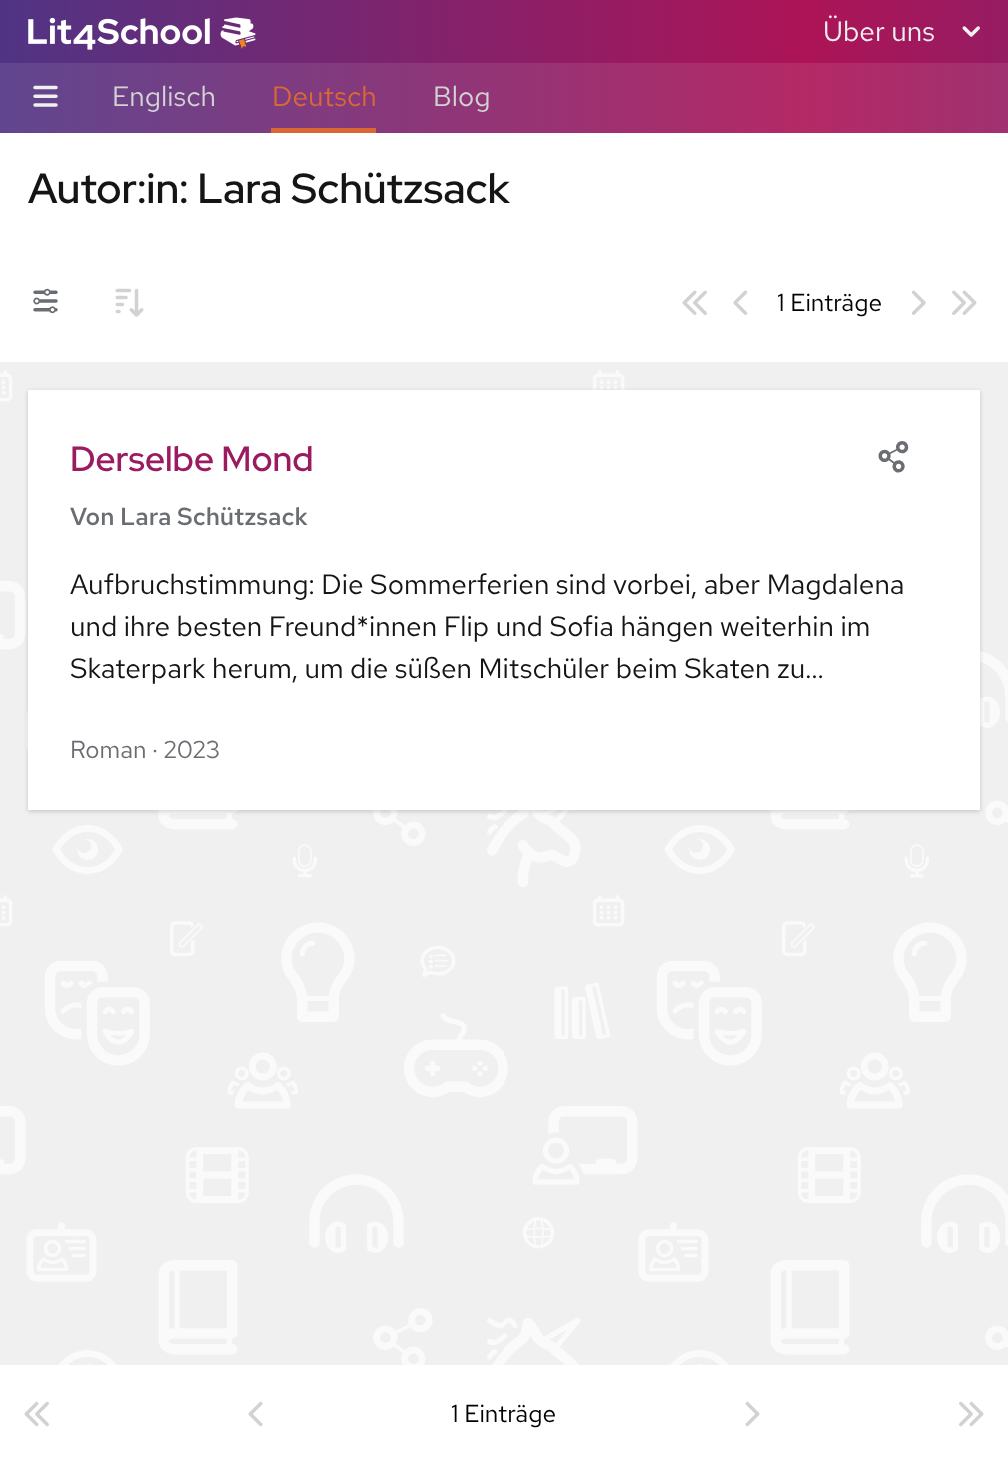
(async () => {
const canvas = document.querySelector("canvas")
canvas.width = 1008
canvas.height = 1462
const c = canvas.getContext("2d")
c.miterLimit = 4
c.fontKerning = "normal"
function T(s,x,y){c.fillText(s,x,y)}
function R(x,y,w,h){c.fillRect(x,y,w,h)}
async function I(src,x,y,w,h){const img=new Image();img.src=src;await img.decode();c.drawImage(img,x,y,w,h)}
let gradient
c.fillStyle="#f0f0f0"
R(0,0,1008,1462)
gradient = c.createLinearGradient(0,67,1008,66)
gradient.addColorStop(0,"#503484")
gradient.addColorStop(.8,"#ad1457")
gradient.addColorStop(1,"#961c62")
c.fillStyle = gradient
R(0,0,1008,63)
await I("1.png",28,17,228,33)
c.font="28px Red Hat Text"
c.fillStyle="#f0f0f0"
T("Über uns",823,41)
await I("2.png",962,26,18,11)
gradient = c.createLinearGradient(0,98,1008,98)
gradient.addColorStop(0,"#60468f")
gradient.addColorStop(.8,"#b42966")
gradient.addColorStop(1,"#a03170")
c.fillStyle = gradient
R(0,63,1008,70)
await I("3.png",33,85,25,22)
c.fillStyle="#d2d2d2"
T("Englisch",112,106)
c.fillStyle="#db6834"
T("Deutsch",272,106)
R(271,128,105,5)
c.fillStyle="#d2d2d2"
T("Blog",433,106)
c.fillStyle="#fff"
R(0,133,1008,229)
c.font="500 42px Red Hat Display"
c.fillStyle="#151515"
T("Autor:in: Lara Schützsack",28,203)
await I("4.png",33,288,25,26)
await I("5.png",115,288,29,29)
await I("6.png",682,290,25,25)
await I("7.png",733,290,15,25)
c.font="24.5px Red Hat Text"
c.fillStyle="#000"
T("1 Einträge",777,311)
await I("8.png",911,290,15,25)
await I("9.png",952,290,25,25)
await I("10.png",0,370,1008,995)
c.fillStyle="#0303030f"
c.filter="blur(2px)"
c.beginPath()
c.rect(28,390,952,420)
c.fill()
c.filter="none"
c.fillStyle="#0303031f"
c.filter="blur(2px)"
c.beginPath()
c.rect(28,392,952,420)
c.fill()
c.filter="none"
c.fillStyle="#fff"
R(28,390,952,420)
c.font="500 35px Red Hat Display"
c.fillStyle="#9a1b60"
T("Derselbe Mond",70,471)
c.font="500 24.5px Red Hat Text"
c.fillStyle="#6a6e73"
T("Von Lara Schützsack",70,525)
await I("11.png",878,441,31,32)
c.font="28px Red Hat Text"
c.fillStyle="#151515"
T("Aufbruchstimmung: Die Sommerferien sind vorbei, aber Magdalena",70,594)
T("und ihre besten Freund*innen Flip und Sofia hängen weiterhin im",70,636)
T("Skaterpark herum, um die süßen Mitschüler beim Skaten zu…",70,678)
c.font="24.5px Red Hat Text"
c.fillStyle="#6a6e73"
T("Roman · 2023",70,758)
c.fillStyle="#fff"
R(0,1365,1008,97)
await I("12.png",24,1401,25,26)
await I("13.png",248,1401,15,26)
c.fillStyle="#000"
T("1 Einträge",451,1422)
await I("14.png",745,1401,15,26)
await I("15.png",959,1401,25,26)
})()
